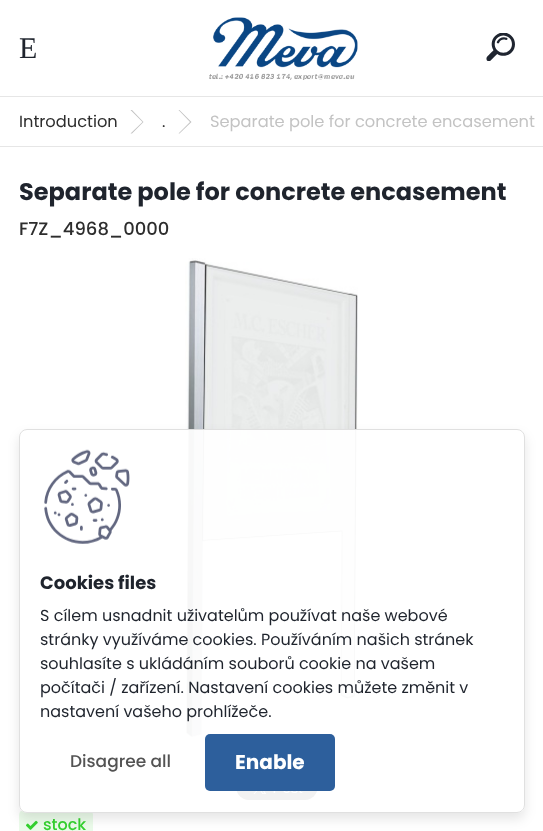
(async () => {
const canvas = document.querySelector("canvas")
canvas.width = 543
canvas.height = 831
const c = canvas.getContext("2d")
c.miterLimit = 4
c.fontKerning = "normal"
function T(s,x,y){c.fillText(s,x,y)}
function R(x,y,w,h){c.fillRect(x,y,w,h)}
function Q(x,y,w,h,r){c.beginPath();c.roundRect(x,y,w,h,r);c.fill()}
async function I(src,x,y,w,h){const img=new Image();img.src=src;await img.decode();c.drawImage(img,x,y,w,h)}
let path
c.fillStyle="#fff"
R(0,0,543,831)
c.fillStyle="#e6e6e6"
R(0,96,543,1)
c.font="30px Liberation Serif"
c.fillStyle="#1f242d"
T("E",19,58)
await I("1.png",209,17,149,63)
await I("2.png",486,33,29,28)
c.fillStyle="#e6e6e6"
R(0,146,543,1)
c.font="16.25px Poppins"
c.fillStyle="#2d2d2d"
T("Introduction",19,127)
T(".",162,127)
c.fillStyle="#c3c3c3"
path = new Path2D("M130.5 110h1.5l11.5 12h-1zm12 12h1l-11.5 11.5h-1.5zm36-12h1l12 12h-1.5z")
c.fill(path)
path = new Path2D("M190 122h1.5l-12 11.5h-1z")
c.fill(path)
T("Separate pole for concrete encasement",210,127)
c.font="bold 24px Poppins"
c.fillStyle="#1f242d"
T("Separate pole for concrete encasement",19,200)
c.font="500 18px Poppins"
c.fillStyle="#2d2d2d"
T("F7Z_4968_0000",19,235)
await I("3.png",185,258,173,480)
await I("4.png",236,791,81,9)
c.fillStyle="#ebfbea"
Q(19,810,74,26,5)
await I("5.png",26,820,12,10)
c.font="500 16px Poppins"
c.fillStyle="#34d22f"
T("stock",43,830)
c.save()
path = new Path2D("M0 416h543v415h-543zm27 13h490c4.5 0 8 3.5 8 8v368c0 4.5-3.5 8-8 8h-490c-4.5 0-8-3.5-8-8v-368c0-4.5 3.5-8 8-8z")
c.clip(path,"evenodd")
c.fillStyle="#0000001a"
c.filter="blur(6px)"
c.beginPath()
c.roundRect(19,435,506,384,8)
c.fill()
c.filter="none"
c.restore()
c.fillStyle="#fffffff2"
c.beginPath()
c.roundRect(19.5,429.5,505,383,7.5)
c.fill()
c.strokeStyle="#e0e0e0"
c.stroke()
await I("6.png",44,449,86,95)
c.font="bold 18px Poppins"
c.fillStyle="#1f242d"
T("Cookies files",40,589)
c.font="16px Poppins"
T("S cílem usnadnit uživatelům používat naše webové",40,621)
T("stránky využíváme cookies. Používáním našich stránek",40,645)
T("souhlasíte s ukládáním souborů cookie na vašem",40,669)
T("počítači / zařízení. Nastavení cookies můžete změnit v",40,693)
T("nastavení vašeho prohlížeče.",40,717)
c.font="500 17px Poppins"
c.fillStyle="#535353"
T("Disagree all",70,767)
c.fillStyle="#2d5f9c"
Q(205,734,130,57,5)
c.font="bold 20px Poppins"
c.fillStyle="#fff"
T("Enable",235,769)
})()
